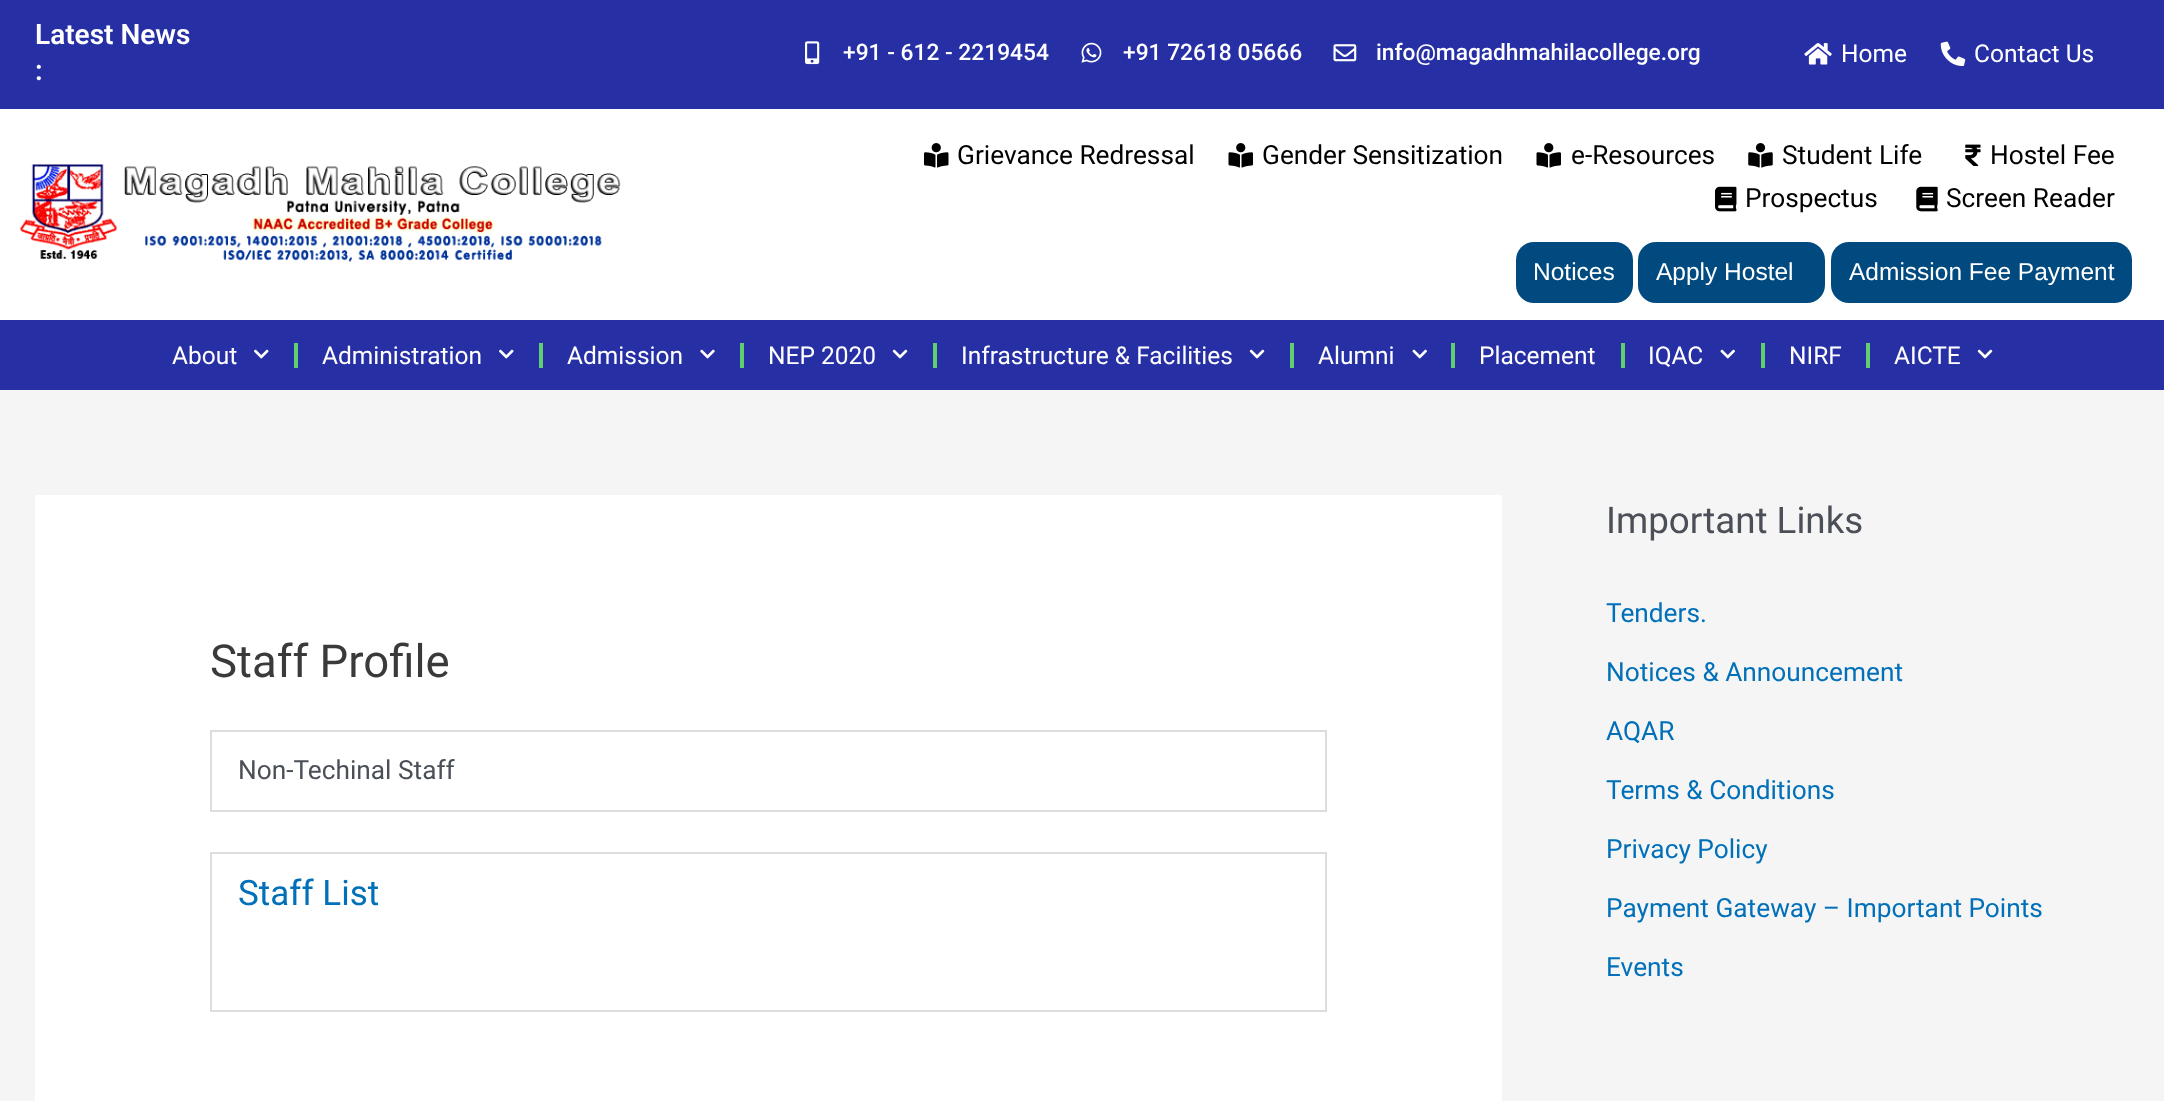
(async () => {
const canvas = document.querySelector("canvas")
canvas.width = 2164
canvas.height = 1101
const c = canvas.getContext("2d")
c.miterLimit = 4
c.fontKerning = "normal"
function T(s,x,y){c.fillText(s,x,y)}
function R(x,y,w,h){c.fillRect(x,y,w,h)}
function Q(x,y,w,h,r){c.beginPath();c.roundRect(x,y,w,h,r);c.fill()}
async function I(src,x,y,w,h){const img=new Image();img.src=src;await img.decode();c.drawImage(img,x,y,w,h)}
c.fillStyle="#f5f5f5"
R(0,0,2164,1101)
c.fillStyle="#272fa5"
R(0,0,2164,109)
c.font="600 28px Roboto"
c.fillStyle="#fff"
T("Latest News",35,44)
T(":",35,80)
await I("1.png",805,41,15,24)
c.font="500 22.75px Roboto"
T("+91 - 612 - 2219454",843,60)
await I("2.png",1081,42,21,21)
T("+91 72618 05666",1123,60)
await I("3.png",1333,44,24,18)
T("info@magadhmahilacollege.org",1376,60)
await I("4.png",1804,43,28,22)
c.font="24.5px Roboto"
T("Home",1841,62)
await I("5.png",1940,41,26,26)
T("Contact Us",1974,62)
R(0,109,2164,211)
await I("6.png",20,164,601,98)
await I("7.png",924,143,25,25)
c.font="26.25px Roboto"
c.fillStyle="#000"
T("Grievance Redressal",957,164)
await I("8.png",1228,143,25,25)
T("Gender Sensitization",1262,164)
await I("8.png",1536,143,25,25)
T("e-Resources",1571,164)
await I("9.png",1748,143,25,25)
T("Student Life",1782,164)
await I("10.png",1965,144,16,22)
T("Hostel Fee",1990,164)
await I("11.png",1715,186,22,26)
T("Prospectus",1745,207)
await I("12.png",1916,186,22,26)
T("Screen Reader",1946,207)
c.fillStyle="#004a7f"
Q(1516,242,117,61,18)
c.font="24.5px Liberation Sans"
c.fillStyle="#fff"
T("Notices",1533,280)
c.fillStyle="#004a7f"
Q(1638,242,187,61,18)
c.fillStyle="#fff"
T("Apply Hostel",1656,280)
c.fillStyle="#004a7f"
Q(1831,242,301,61,18)
c.fillStyle="#fff"
T("Admission Fee Payment",1849,280)
c.fillStyle="#272fa5"
R(0,320,2164,70)
c.font="24.5px Roboto"
c.fillStyle="#fff"
T("About",172,364)
await I("13.png",254,349,15,10)
c.fillStyle="#61ce70"
R(294,343,4,25)
c.fillStyle="#fff"
T("Administration",322,364)
await I("13.png",499,349,15,10)
c.fillStyle="#61ce70"
R(539,343,4,25)
c.fillStyle="#fff"
T("Admission",567,364)
await I("14.png",700,349,15,10)
c.fillStyle="#61ce70"
R(740,343,4,25)
c.fillStyle="#fff"
T("NEP 2020",768,364)
await I("15.png",892,349,16,10)
c.fillStyle="#61ce70"
R(933,343,4,25)
c.fillStyle="#fff"
T("Infrastructure & Facilities",961,364)
await I("15.png",1249,349,16,10)
c.fillStyle="#61ce70"
R(1290,343,4,25)
c.fillStyle="#fff"
T("Alumni",1318,364)
await I("16.png",1412,349,15,10)
c.fillStyle="#61ce70"
R(1451,343,4,25)
c.fillStyle="#fff"
T("Placement",1479,364)
c.fillStyle="#61ce70"
R(1621,343,4,25)
c.fillStyle="#fff"
T("IQAC",1648,364)
await I("16.png",1720,349,15,10)
c.fillStyle="#61ce70"
R(1761,343,4,25)
c.fillStyle="#fff"
T("NIRF",1789,364)
c.fillStyle="#61ce70"
R(1866,343,4,25)
c.fillStyle="#fff"
T("AICTE",1894,364)
await I("15.png",1977,349,16,10)
R(35,495,1467,606)
c.font="45.5px Roboto"
c.fillStyle="#3a3a3a"
T("Staff Profile",210,677)
c.fillStyle="#ddd"
R(210,730,1117,2)
R(210,730,2,82)
R(1325,732,2,80)
R(212,810,1115,2)
c.font="26.25px Roboto"
c.fillStyle="#4b4f58"
T("Non-Techinal Staff",238,779)
c.fillStyle="#ddd"
R(210,852,1117,2)
R(210,852,2,160)
R(1325,854,2,158)
R(212,1010,1115,2)
c.font="35px Roboto"
c.fillStyle="#0170b9"
T("Staff List",238,905)
c.font="36.75px Roboto"
c.fillStyle="#4b4f58"
T("Important Links",1606,533)
c.font="26.25px Roboto"
c.fillStyle="#0170b9"
T("Tenders.",1606,622)
T("Notices & Announcement",1606,681)
T("AQAR",1606,740)
T("Terms & Conditions",1606,799)
T("Privacy Policy",1606,858)
T("Payment Gateway – Important Points",1606,917)
T("Events",1606,976)
})()
